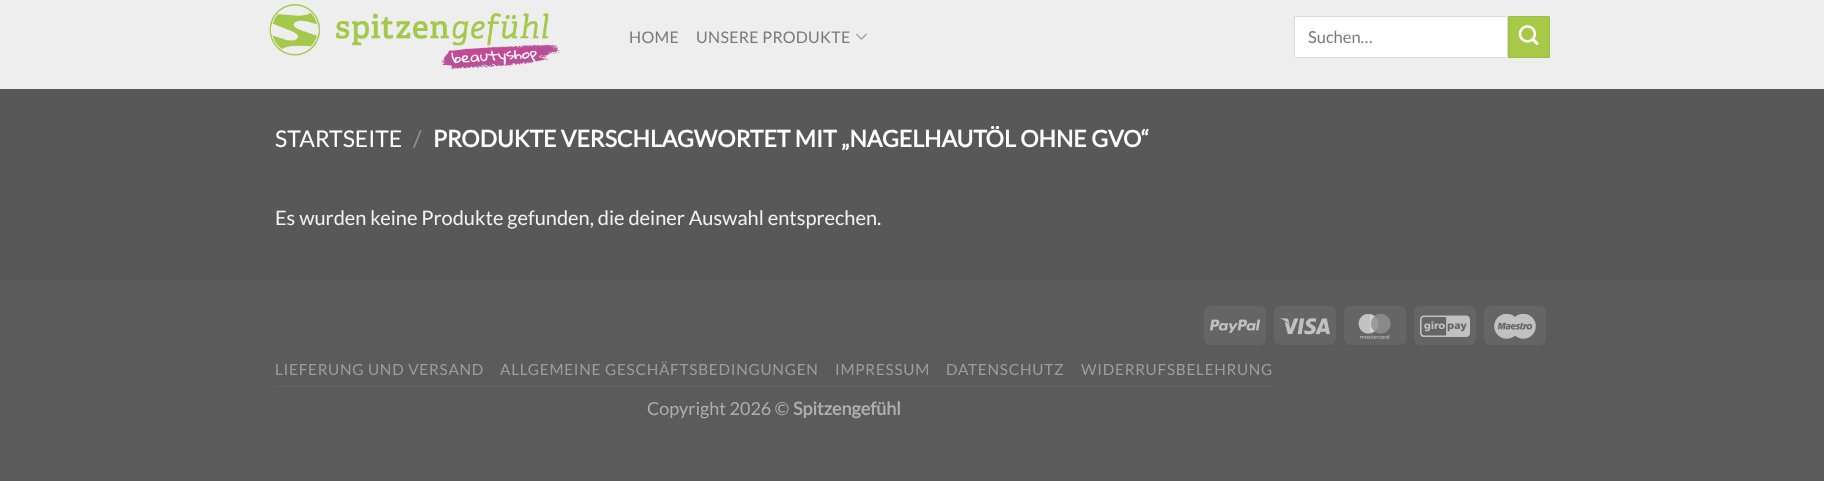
(async () => {
const canvas = document.querySelector("canvas")
canvas.width = 1824
canvas.height = 481
const c = canvas.getContext("2d")
c.miterLimit = 4
c.fontKerning = "normal"
function T(s,x,y){c.fillText(s,x,y)}
function R(x,y,w,h){c.fillRect(x,y,w,h)}
function Q(x,y,w,h,r){c.beginPath();c.roundRect(x,y,w,h,r);c.fill()}
async function I(src,x,y,w,h){const img=new Image();img.src=src;await img.decode();c.drawImage(img,x,y,w,h)}
c.fillStyle="#5b5b5b"
R(0,0,1824,481)
c.fillStyle="#585858"
R(0,89,1824,192)
c.fillStyle="#eee"
R(0,0,1824,89)
await I("1.png",269,3,292,67)
c.letterSpacing="0.3px"
c.font="16px Lato"
c.fillStyle="#7a7a7a"
T("HOME",629,43)
T("UNSERE PRODUKTE",696,43)
await I("2.png",856,33,11,7)
c.fillStyle="#fff"
c.beginPath()
c.rect(1294.5,16.5,213,41)
c.fill()
c.strokeStyle="#ddd"
c.stroke()
c.letterSpacing="0px"
c.font="16.5px Lato"
c.fillStyle="#7a7a7a"
T("Suchen…",1308,43)
c.fillStyle="#a7c947"
c.beginPath()
c.rect(1508.5,16.5,41,41)
c.fill()
c.strokeStyle="#9fbf43"
c.stroke()
await I("3.png",1518,25,21,20)
c.font="23px Lato"
c.fillStyle="#fff"
T("STARTSEITE",275,147)
c.fillStyle="#929292"
T("/",413,147)
c.font="bold 23px Lato"
c.fillStyle="#fff"
T("PRODUKTE VERSCHLAGWORTET MIT „NAGELHAUTÖL OHNE GVO“",433,147)
c.font="20px Lato"
c.fillStyle="#f1f1f1"
T("Es wurden keine Produkte gefunden, die deiner Auswahl entsprechen.",275,225)
c.fillStyle="#656565"
Q(1204,306,62,39,6)
await I("4.png",1210,319,50,14)
Q(1274,306,62,39,6)
await I("5.png",1280,318,50,17)
Q(1344,306,62,39,6)
await I("6.png",1358,314,33,25)
Q(1414,306,62,39,6)
await I("7.png",1420,315,50,22)
Q(1484,306,62,39,6)
await I("8.png",1494,314,42,25)
R(275,386,998,1)
c.letterSpacing="0.75px"
c.font="15.3px Lato"
c.fillStyle="#9d9d9d"
T("LIEFERUNG UND VERSAND",275,375)
T("ALLGEMEINE GESCHÄFTSBEDINGUNGEN",500,375)
T("IMPRESSUM",835,375)
T("DATENSCHUTZ",946,375)
T("WIDERRUFSBELEHRUNG",1081,375)
c.letterSpacing="0px"
c.font="18px Lato"
c.fillStyle="#adadad"
T("Copyright 2026 ©",647,415)
c.font="bold 18px Lato"
T("Spitzengefühl",793,415)
})()
